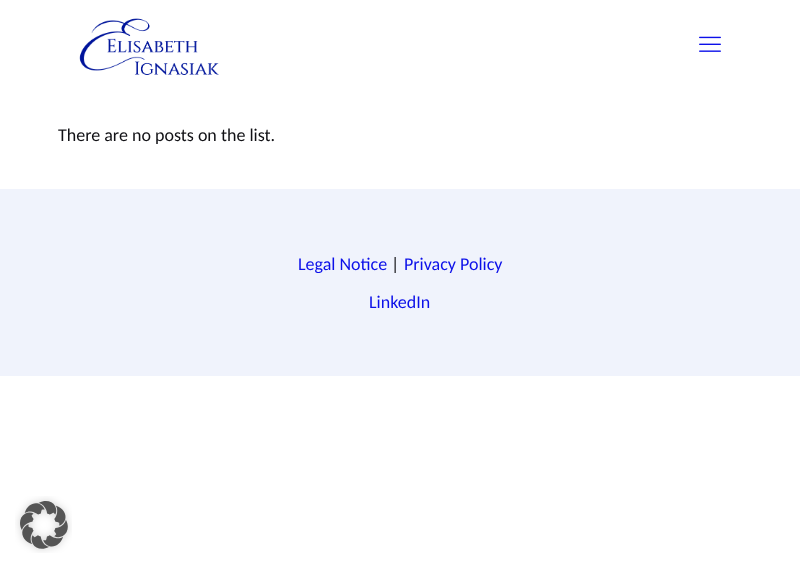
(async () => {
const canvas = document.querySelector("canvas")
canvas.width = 800
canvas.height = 569
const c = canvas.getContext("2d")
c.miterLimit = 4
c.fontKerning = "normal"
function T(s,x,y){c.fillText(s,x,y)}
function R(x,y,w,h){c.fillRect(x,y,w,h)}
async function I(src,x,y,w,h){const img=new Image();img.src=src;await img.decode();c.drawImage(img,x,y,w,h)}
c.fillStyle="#fff"
R(0,0,800,569)
await I("1.png",79,18,140,57)
await I("2.png",699,36,22,16)
c.font="18px Carlito"
c.fillStyle="#111115"
T("There are no posts on the list.",58,141)
c.fillStyle="#f0f3fc"
R(0,189,800,187)
c.fillStyle="#0c10e9"
T("Legal Notice",298,270)
c.fillStyle="#111115"
T("|",391,270)
c.fillStyle="#0c10e9"
T("Privacy Policy",404,270)
T("LinkedIn",369,308)
await I("3.png",15,496,57,57)
})()
